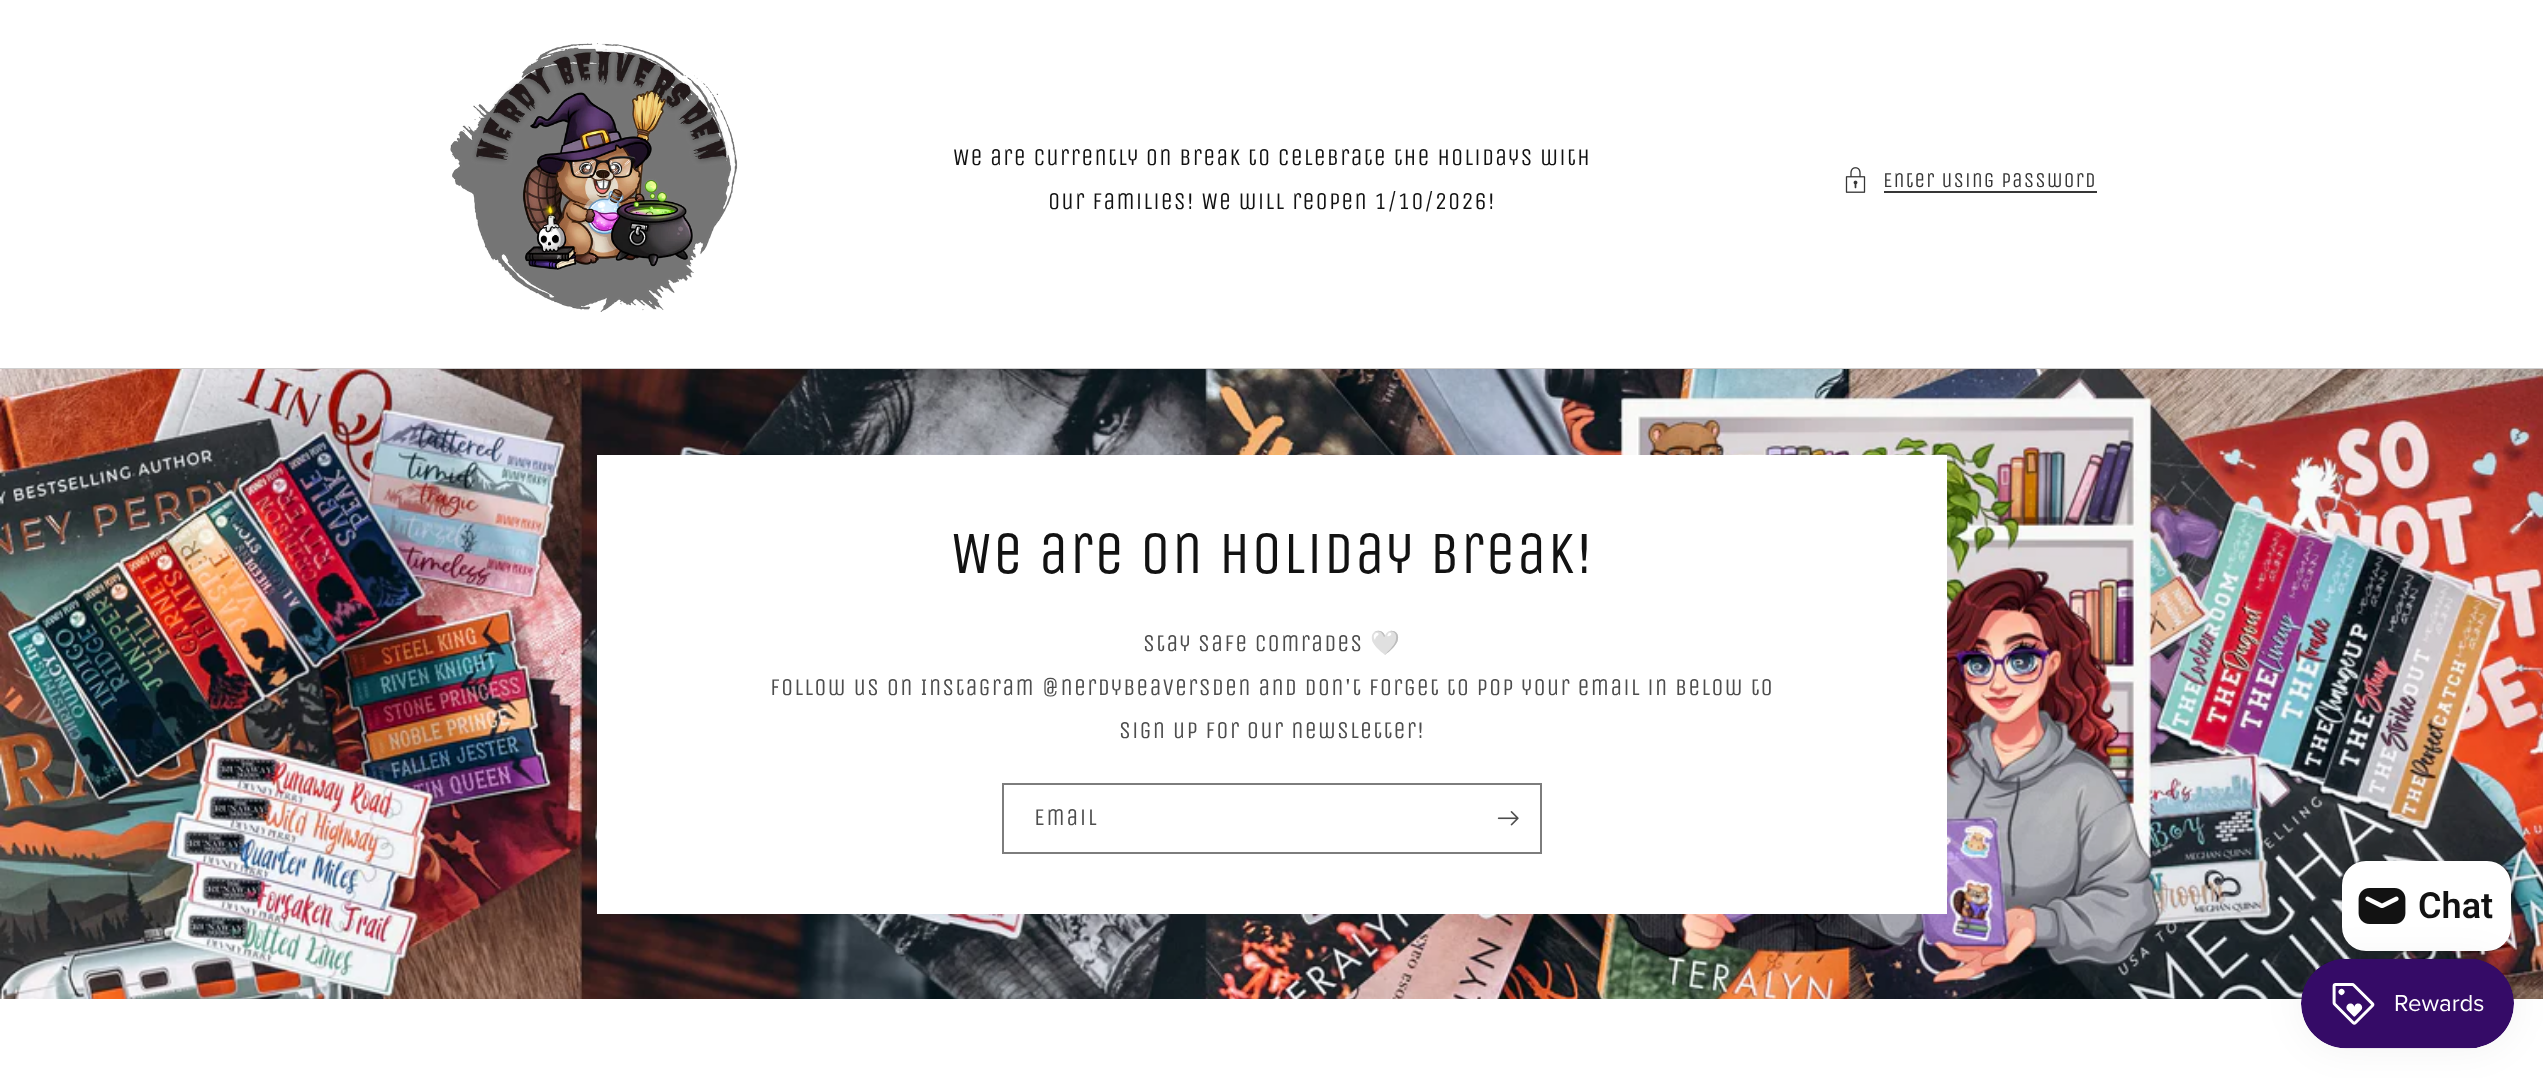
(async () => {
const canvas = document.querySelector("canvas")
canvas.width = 2543
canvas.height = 1078
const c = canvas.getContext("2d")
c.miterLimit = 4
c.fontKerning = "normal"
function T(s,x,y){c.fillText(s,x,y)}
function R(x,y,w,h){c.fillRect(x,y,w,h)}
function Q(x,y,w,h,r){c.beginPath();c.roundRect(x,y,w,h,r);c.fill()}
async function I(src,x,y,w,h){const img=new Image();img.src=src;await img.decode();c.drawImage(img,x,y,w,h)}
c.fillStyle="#fff"
R(0,0,2543,1078)
await I("1.png",450,43,288,269)
c.letterSpacing="1.05px"
c.font="24px Unica One"
c.fillStyle="#121212"
T("We are currently on break to celebrate the holidays with",953,165)
T("our families! We will reopen 1/10/2026!",1048,209)
await I("2.png",1845,167,21,26)
c.font="21px Unica One"
c.fillStyle="#363636"
T("Enter using password",1883,187)
R(1884,191,213,2)
c.fillStyle="#d0d0d0"
R(0,368,2543,1)
await I("3.png",0,369,2543,630)
c.fillStyle="#fff"
R(597,455,1350,459)
c.letterSpacing="0.9px"
c.font="60px Unica One"
c.fillStyle="#121212"
T("We are on Holiday Break!",951,573)
c.letterSpacing="1.05px"
c.font="24px Unica One"
c.fillStyle="#4d4d4d"
T("Stay safe comrades",1143,651)
c.font="24px Noto Color Emoji"
T("🤍",1370,651)
c.font="24px Unica One"
T("Follow us on Instagram @nerdybeaversden and don't forget to pop your email in below to",770,695)
T("sign up for our newsletter!",1119,738)
c.strokeStyle="#7d7d7d"
c.lineWidth=2
c.strokeRect(1003,784,538,69)
c.letterSpacing="1.5px"
T("Email",1034,825)
await I("4.png",1497,811,22,15)
c.fillStyle="#00000026"
c.filter="blur(4px)"
c.beginPath()
c.roundRect(2342,861,169,90,24)
c.fill()
c.filter="none"
c.fillStyle="#fff"
Q(2342,861,169,90,24)
await I("5.png",2358,888,48,36)
c.letterSpacing="0px"
c.font="600 36px Roboto"
c.fillStyle="#121212"
T("Chat",2418,918)
c.fillStyle="#0000000d"
c.filter="blur(19px)"
c.beginPath()
c.roundRect(2301,959,213,90,45)
c.fill()
c.filter="none"
await I("6.png",2301,958,213,91)
})()
